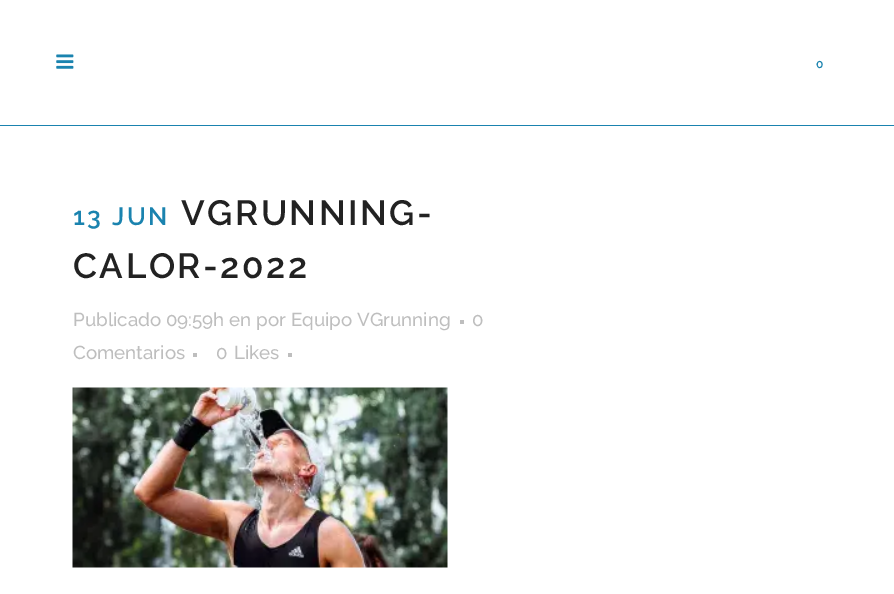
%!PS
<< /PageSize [894 594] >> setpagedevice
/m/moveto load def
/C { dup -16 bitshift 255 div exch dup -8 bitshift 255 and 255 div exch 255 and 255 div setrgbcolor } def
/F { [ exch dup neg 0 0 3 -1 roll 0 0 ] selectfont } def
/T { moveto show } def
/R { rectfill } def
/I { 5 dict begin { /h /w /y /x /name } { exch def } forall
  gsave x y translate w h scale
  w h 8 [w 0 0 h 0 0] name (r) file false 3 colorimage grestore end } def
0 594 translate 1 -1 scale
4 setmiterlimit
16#FFFFFF C
0 0 894 594 R
16#1A83AF C
0 125 894 1 R
(1.rgb) 56 54 18 15 I
/Raleway-SemiBold 12 F
(0) 816 68 T
/Raleway-SemiBold 25 F
73 225 m 2.5 0 (13 JUN) ashow
/Raleway-SemiBold 35 F
16#222222 C
181 225 m 2.5 0 (VGRUNNING-) ashow
73 278 m 2.5 0 (CALOR-2022) ashow
/Raleway-Medium 18.75 F
16#BEBEBE C
(Publicado 09:59h en por Equipo VGrunning) 73 326 T
460 320 4 4 R
(0) 472 326 T
(Comentarios) 73 359 T
193 353 4 4 R
(0) 216 359 T
(Likes) 234 359 T
288 353 4 4 R
(2.rgb) 72 387 376 181 I
showpage
